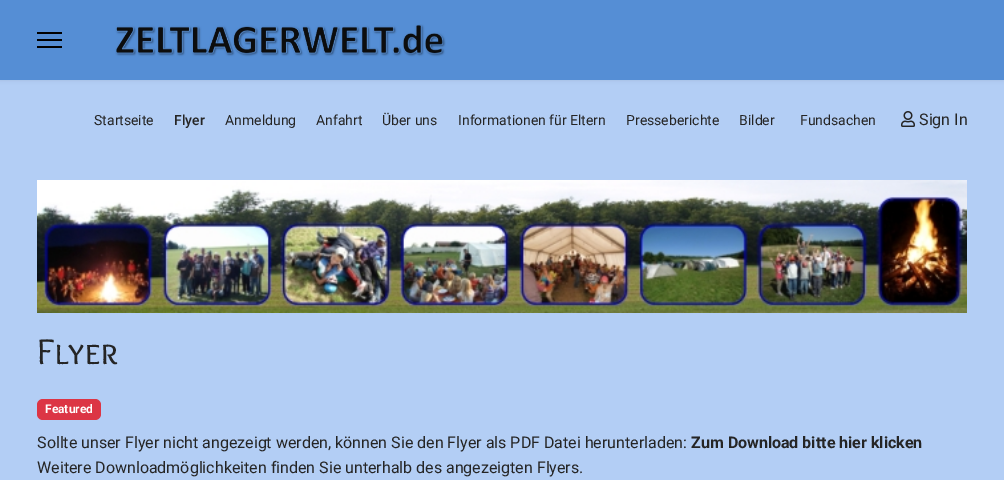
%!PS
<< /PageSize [1004 480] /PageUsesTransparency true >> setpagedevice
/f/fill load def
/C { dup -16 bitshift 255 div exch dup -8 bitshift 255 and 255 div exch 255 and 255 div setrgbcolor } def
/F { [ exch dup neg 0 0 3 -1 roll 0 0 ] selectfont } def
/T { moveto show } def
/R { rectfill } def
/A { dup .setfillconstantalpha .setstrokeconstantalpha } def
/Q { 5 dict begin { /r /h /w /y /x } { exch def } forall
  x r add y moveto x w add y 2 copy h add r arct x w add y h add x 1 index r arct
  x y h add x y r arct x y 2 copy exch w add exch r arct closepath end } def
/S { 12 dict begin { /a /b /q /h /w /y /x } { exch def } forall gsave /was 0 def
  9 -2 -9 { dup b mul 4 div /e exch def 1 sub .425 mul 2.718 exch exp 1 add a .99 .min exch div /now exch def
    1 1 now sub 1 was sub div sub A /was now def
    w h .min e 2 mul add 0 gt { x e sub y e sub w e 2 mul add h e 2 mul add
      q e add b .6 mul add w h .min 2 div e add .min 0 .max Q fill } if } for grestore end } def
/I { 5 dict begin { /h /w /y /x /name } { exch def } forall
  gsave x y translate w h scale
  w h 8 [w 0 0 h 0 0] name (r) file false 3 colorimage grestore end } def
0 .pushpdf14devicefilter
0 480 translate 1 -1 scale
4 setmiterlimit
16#B3CEF5 C
0 0 1004 480 R
16#000000 C
0 0 1004 80 0 2 .1 S
16#558ED5 C
0 0 1004 80 R
16#000000 C
37 32 25 2 R
37 39 25 2 R
37 46 25 2 R
(1.rgb) 115 24 331 33 I
/Roboto-Regular 14 F
16#252525 C
(Startseite) 94 125 T
/Roboto-Medium 14 F
(Flyer) 174 125 T
/Roboto-Regular 14 F
(Anmeldung) 225 125 T
(Anfahrt) 316 125 T
(Über uns) 382 125 T
(Informationen für Eltern) 458 125 T
(Presseberichte) 626 125 T
(Bilder) 739 125 T
(Fundsachen) 800 125 T
(2.rgb) 901 111 14 16 I
/Roboto-Regular 16 F
(Sign In) 919 125 T
(3.rgb) 37 180 930 133 I
/OverlockSC-Regular 37 F
(Flyer) 37 364 T
16#DC3545 C
37 399 64 21 6 Q f
/Roboto-Bold 12 F
16#FFFFFF C
(Featured) 45 413 T
/Roboto-Regular 16 F
16#252525 C
(Sollte unser Flyer nicht angezeigt werden, können Sie den Flyer als PDF Datei herunterladen:) 37 448 T
/Roboto-Bold 16 F
(Zum Download bitte hier klicken) 691 448 T
/Roboto-Regular 16 F
(Weitere Downloadmöglichkeiten finden Sie unterhalb des angezeigten Flyers.) 37 473 T
.poppdf14devicefilter showpage
